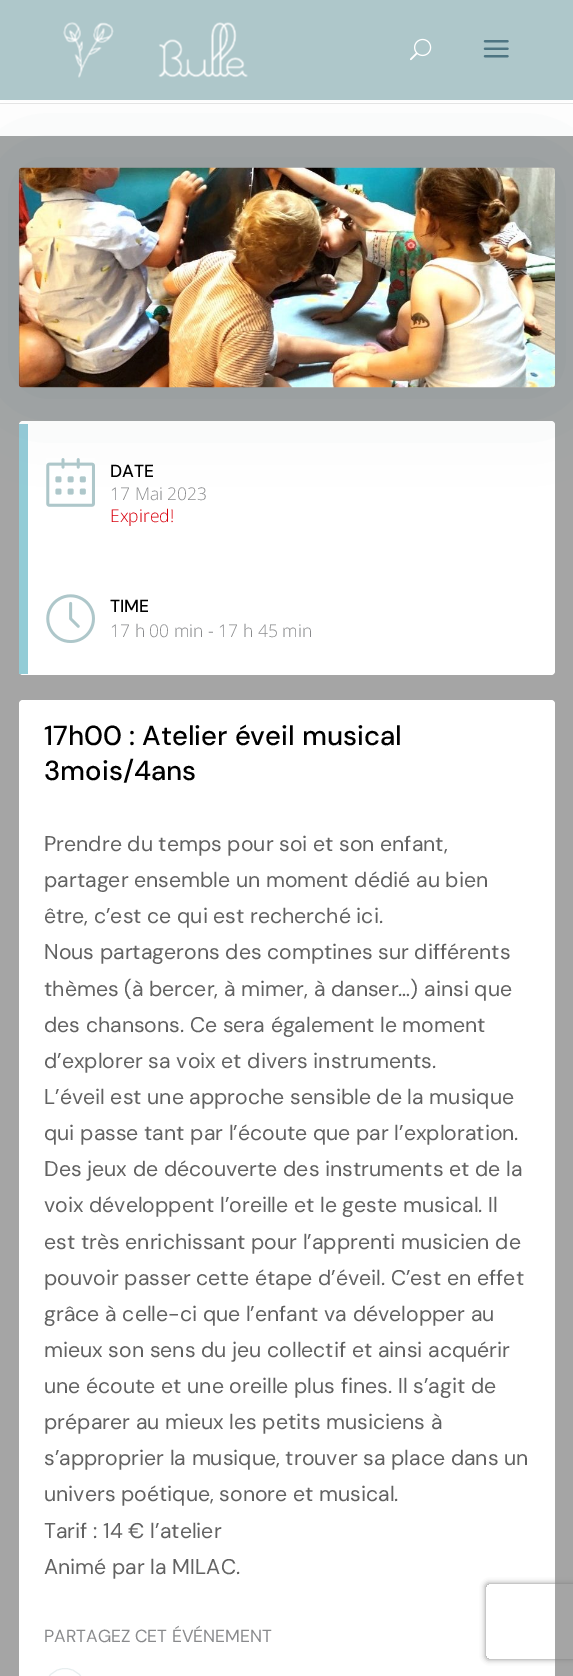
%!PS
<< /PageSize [573 1676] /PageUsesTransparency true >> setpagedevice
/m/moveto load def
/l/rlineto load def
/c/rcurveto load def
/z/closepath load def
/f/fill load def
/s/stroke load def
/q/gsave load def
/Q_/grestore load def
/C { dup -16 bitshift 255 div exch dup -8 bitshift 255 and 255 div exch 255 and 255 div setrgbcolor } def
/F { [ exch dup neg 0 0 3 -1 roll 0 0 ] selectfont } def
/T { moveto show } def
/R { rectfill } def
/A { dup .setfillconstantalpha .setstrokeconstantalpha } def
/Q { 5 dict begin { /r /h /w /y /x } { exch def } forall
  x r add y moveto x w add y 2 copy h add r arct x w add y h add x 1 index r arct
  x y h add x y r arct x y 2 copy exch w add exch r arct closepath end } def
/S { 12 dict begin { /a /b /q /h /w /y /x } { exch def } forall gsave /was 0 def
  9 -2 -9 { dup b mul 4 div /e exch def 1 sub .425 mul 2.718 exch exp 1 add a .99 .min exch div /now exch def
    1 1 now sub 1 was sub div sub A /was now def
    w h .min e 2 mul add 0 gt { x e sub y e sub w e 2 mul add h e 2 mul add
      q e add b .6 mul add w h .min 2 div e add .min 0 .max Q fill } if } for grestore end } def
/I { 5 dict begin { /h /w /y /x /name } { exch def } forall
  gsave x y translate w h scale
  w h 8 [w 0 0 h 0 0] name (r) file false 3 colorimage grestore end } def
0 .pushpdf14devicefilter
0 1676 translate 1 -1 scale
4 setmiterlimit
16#FFFFFF C
0 0 573 1676 R
16#A5A5A5 C
0 136 573 1540 R
16#FFFFFF C
19 421 536 254 4 Q f
16#93CCD6 C
19 424 9 250 R
16#1B455B C
19 168 536 220 4 44 .12 S
16#E4E4E4 C
0 102 m 0 2 l 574 0 l 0 -103 l 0 101 l z f
16#AEC7CA C
0 0 573 100 R
16#FFFFFF C
0 102 573 1 R
(1.rgb) 63 22 185 56 I
(2.rgb) 410 38 22 23 I
(3.rgb) 483 40 26 18 I
(4.rgb) 18 167 537 221 I
(5.rgb) 46 458 49 49 I
/DMSans-Medium 17.5 F
16#000000 C
(DATE) 110 477 T
/OpenSans-Light 17.5 F
16#898A8C C
(17 Mai 2023) 110 500 T
16#D8000C C
(Expired!) 110 522 T
(6.rgb) 46 594 49 49 I
/DMSans-Medium 17.5 F
16#000000 C
(TIME) 110 612 T
/OpenSans-Light 17.5 F
16#898A8C C
(17 h 00 min - 17 h 45 min) 110 637 T
16#FFFFFF C
19 700 536 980 4 Q f
/DMSans-Medium 27.5 F
16#000000 C
(17h00 : Atelier éveil musical) 44 745 T
(3mois/4ans) 44 780 T
/DMSans-Regular 21.25 F
16#626262 C
(Prendre du temps pour soi et son enfant,) 44 851 T
(partager ensemble un moment dédié au bien) 44 887 T
(être, c’est ce qui est recherché ici.) 44 923 T
(Nous partagerons des comptines sur différents) 44 959 T
(thèmes \(à bercer, à mimer, à danser…\) ainsi que) 44 996 T
(des chansons. Ce sera également le moment) 44 1032 T
(d’explorer sa voix et divers instruments.) 44 1068 T
(L’éveil est une approche sensible de la musique) 44 1104 T
(qui passe tant par l’écoute que par l’exploration.) 44 1140 T
(Des jeux de découverte des instruments et de la) 44 1176 T
(voix développent l’oreille et le geste musical. Il) 44 1212 T
(est très enrichissant pour l’apprenti musicien de) 44 1249 T
(pouvoir passer cette étape d’éveil. C’est en effet) 44 1285 T
(grâce à celle-ci que l’enfant va développer au) 44 1321 T
(mieux son sens du jeu collectif et ainsi acquérir) 44 1357 T
(une écoute et une oreille plus fines. Il s’agit de) 44 1393 T
(préparer au mieux les petits musiciens à) 44 1429 T
(s’approprier la musique, trouver sa place dans un) 44 1465 T
(univers poétique, sonore et musical.) 44 1501 T
(Tarif : 14 € l’atelier) 44 1538 T
(Animé par la MILAC.) 44 1574 T
/DMSans-Regular 17.5 F
16#898A8C C
(PARTAGEZ CET ÉVÉNEMENT) 44 1642 T
16#E7EEEF C
44.5 1668.5 41 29 20.5 Q s
q
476 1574 m 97 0 l 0 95 l -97 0 l z 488.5 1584 m 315 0 l 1.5 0 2.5 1 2.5 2.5 c 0 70 l 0 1.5 -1 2.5 -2.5 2.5 c -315 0 l -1.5 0 -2.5 -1 -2.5 -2.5 c 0 -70 l 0 -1.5 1 -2.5 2.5 -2.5 c z eoclip newpath
16#808080 C
486 1584 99 75 2.5 3 1 S
Q_
.poppdf14devicefilter showpage
